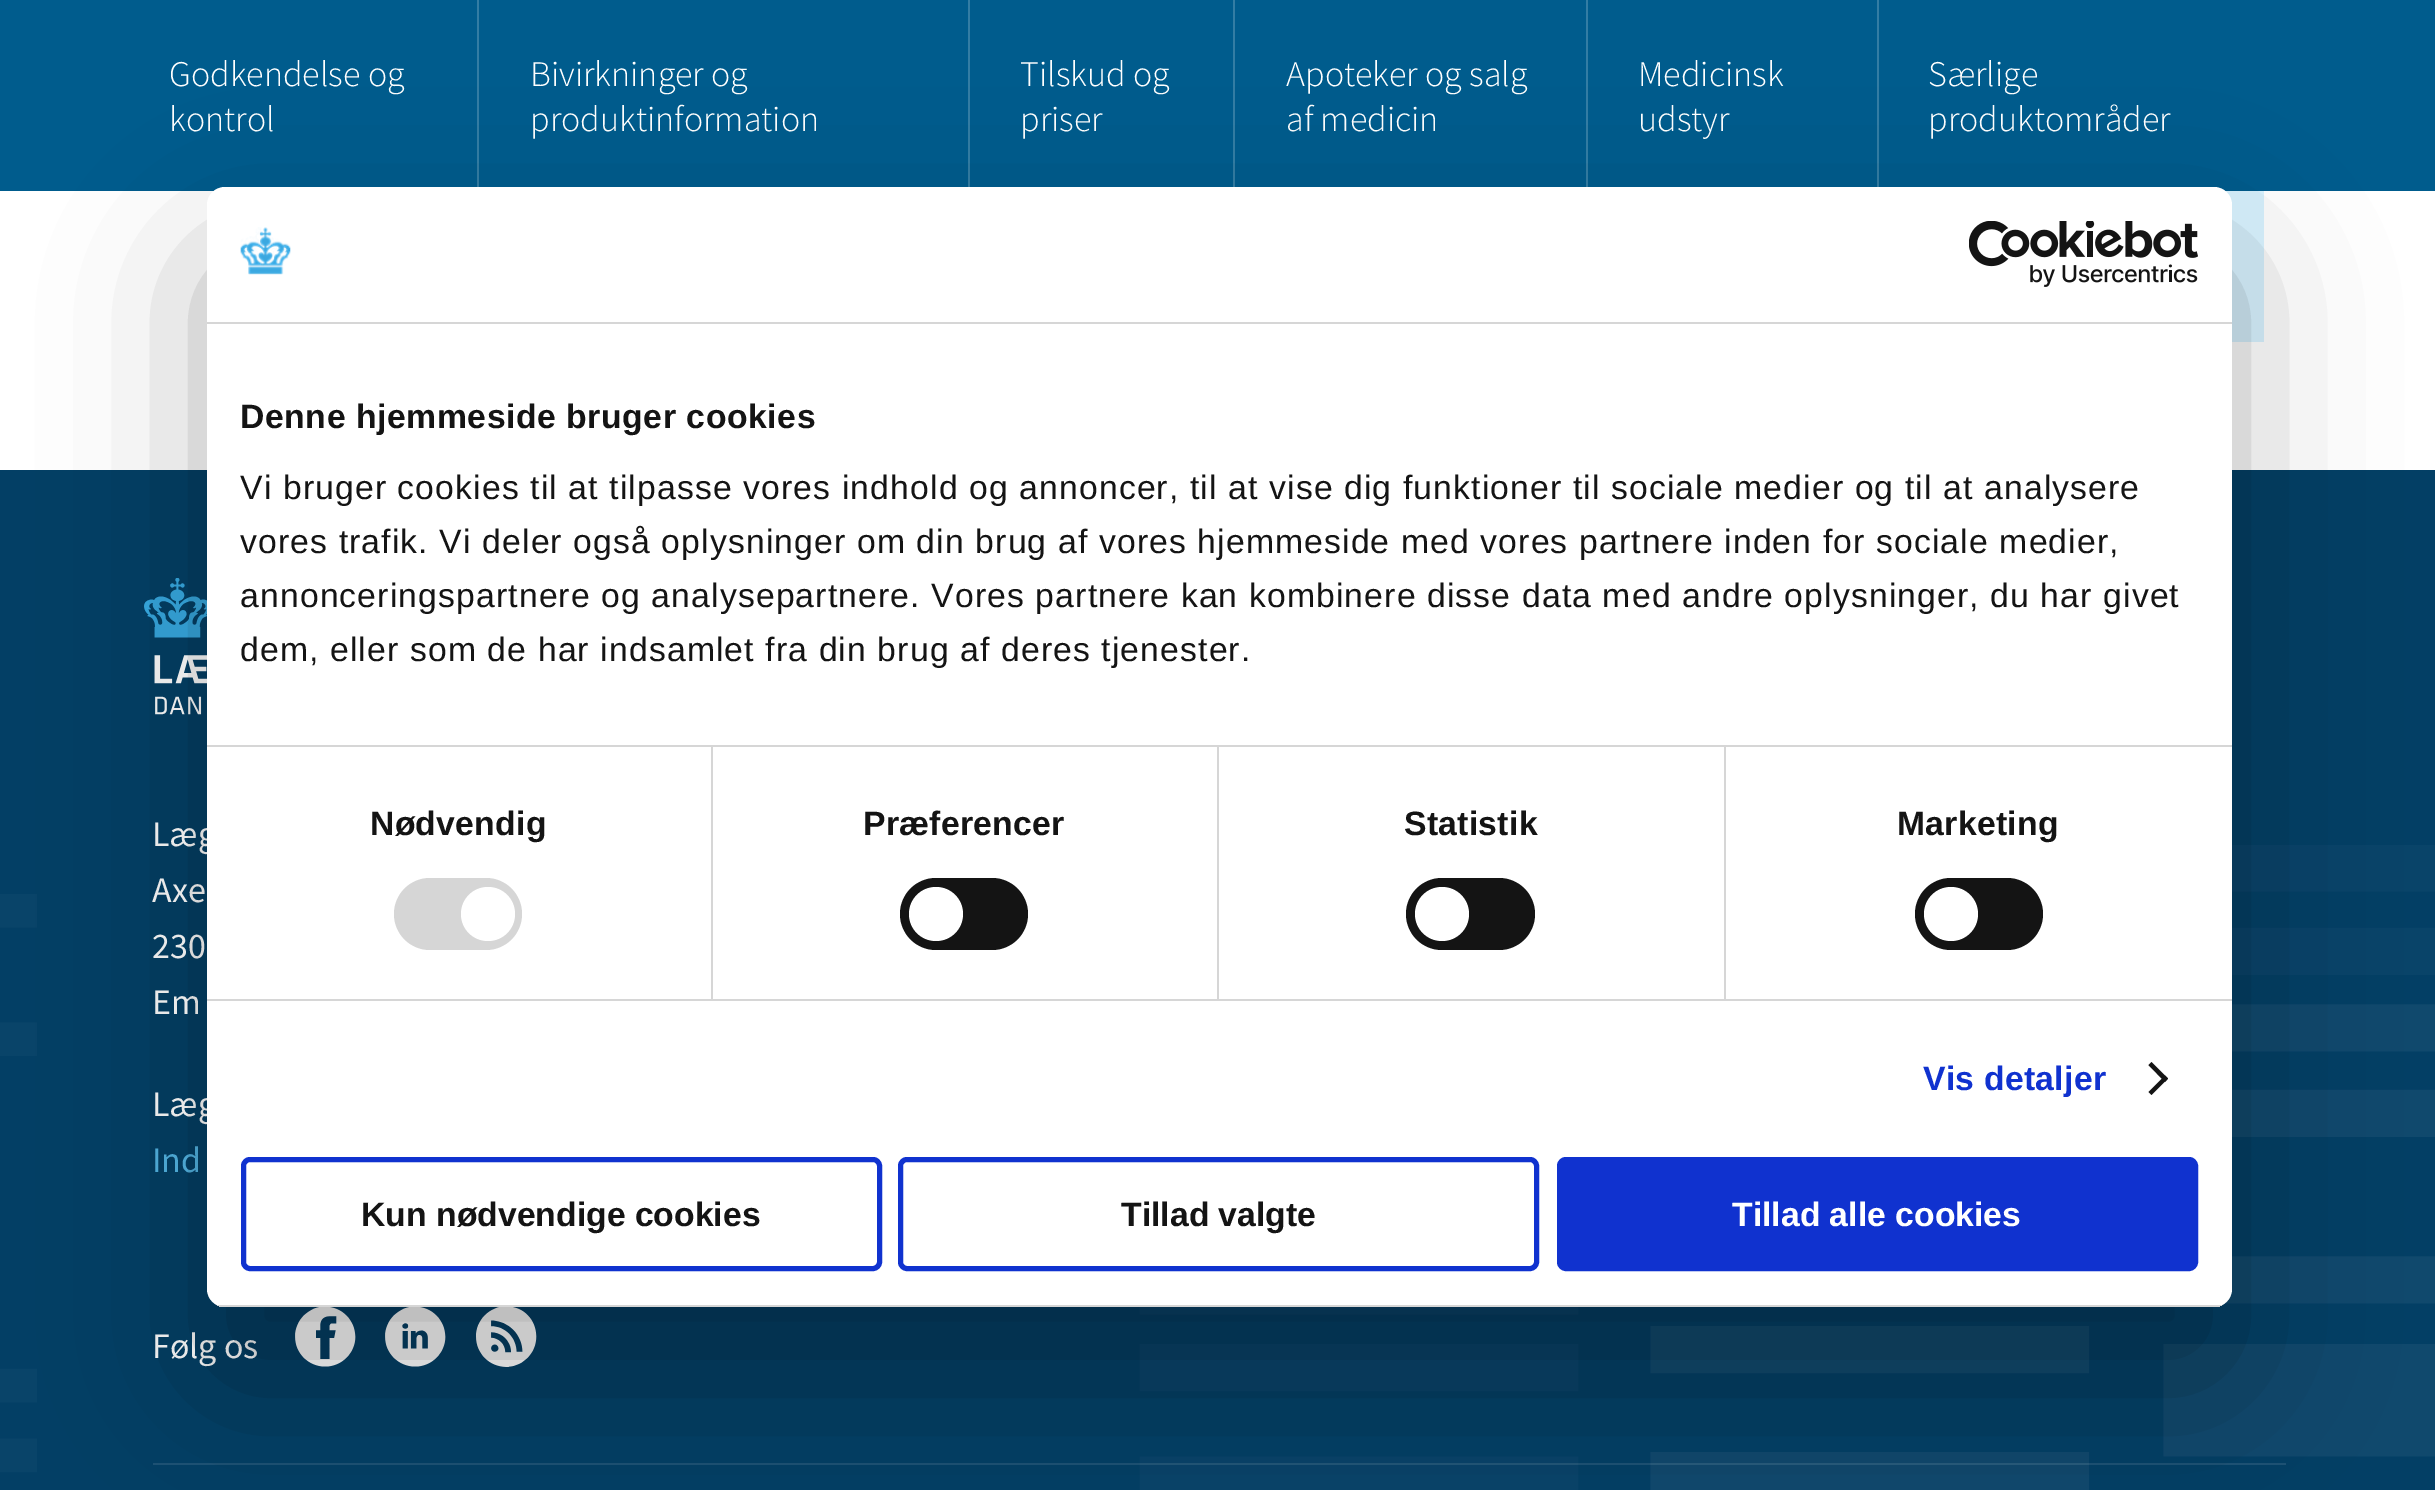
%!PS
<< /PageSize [2435 1490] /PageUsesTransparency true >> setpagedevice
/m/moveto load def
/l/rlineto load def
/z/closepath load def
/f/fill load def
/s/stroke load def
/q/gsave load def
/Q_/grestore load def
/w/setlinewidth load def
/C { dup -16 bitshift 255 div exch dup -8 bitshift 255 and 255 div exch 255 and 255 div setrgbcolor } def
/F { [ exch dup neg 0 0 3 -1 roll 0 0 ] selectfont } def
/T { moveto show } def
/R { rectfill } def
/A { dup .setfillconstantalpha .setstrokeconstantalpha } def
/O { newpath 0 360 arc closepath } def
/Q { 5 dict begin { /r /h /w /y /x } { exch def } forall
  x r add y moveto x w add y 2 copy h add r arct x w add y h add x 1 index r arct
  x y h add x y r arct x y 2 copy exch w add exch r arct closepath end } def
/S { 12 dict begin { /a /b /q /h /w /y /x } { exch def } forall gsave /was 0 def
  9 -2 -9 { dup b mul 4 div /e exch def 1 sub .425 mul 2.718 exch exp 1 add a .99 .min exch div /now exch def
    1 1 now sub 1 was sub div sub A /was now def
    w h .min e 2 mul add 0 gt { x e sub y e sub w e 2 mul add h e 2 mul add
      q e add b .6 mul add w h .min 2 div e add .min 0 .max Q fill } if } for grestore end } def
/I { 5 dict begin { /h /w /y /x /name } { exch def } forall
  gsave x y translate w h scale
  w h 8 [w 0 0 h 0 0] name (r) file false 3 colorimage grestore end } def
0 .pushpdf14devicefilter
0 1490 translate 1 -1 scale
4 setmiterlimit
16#FFFFFF C
0 0 2435 1490 R
16#005C8D C
0 0 2435 191 R
/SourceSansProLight-Light 36 F
16#FFFFFF C
(Godkendelse og) 169 86 T
(kontrol) 169 131 T
16#337DA4 C
477 0 2 191 R
16#FFFFFF C
(Bivirkninger og) 530 86 T
(produktinformation) 530 131 T
16#337DA4 C
968 0 2 191 R
16#FFFFFF C
(Tilskud og) 1020 86 T
(priser) 1020 131 T
16#337DA4 C
1233 0 2 191 R
16#FFFFFF C
(Apoteker og salg) 1286 86 T
(af medicin) 1286 131 T
16#337DA4 C
1586 0 2 191 R
16#FFFFFF C
(Medicinsk) 1638 86 T
(udstyr) 1638 131 T
16#337DA4 C
1877 0 2 191 R
16#FFFFFF C
(Særlige) 1928 86 T
(produktområder) 1928 131 T
16#D9F3FF C
2225 191 39 151 R
16#033F65 C
0 470 2435 1020 R
(1.rgb) 0 845 2435 645 I
(2.rgb) 144 578 63 137 I
/SourceSansPro-Regular 36 F
16#FFFFFF C
(Læg) 152 846 T
(Axe) 152 902 T
(230) 152 958 T
(Em) 152 1014 T
(Læg) 152 1116 T
16#53B4E4 C
(Ind) 152 1172 T
16#FFFFFF C
(Følg os) 152 1358 T
(3.rgb) 295 1307 61 60 I
(4.rgb) 385 1307 61 60 I
(5.rgb) 476 1307 61 60 I
0.1 A
153 1463 2133 2 R
1 A
16#000000 C
207 259 2025 1120 18 76.5 .3 S
16#FFFFFF C
207 187 2025 1120 18 Q f
16#D6D6D6 C
207 322 2025 2 R
(6.rgb) 240 227 51 48 I
(7.rgb) 1969 221 229 66 I
207 745 2025 2 R
/LiberationSans-Bold 33.75 F
16#141414 C
240 428 m .55 0 (Denne hjemmeside bruger cookies) ashow
/LiberationSans-Regular 33.75 F
240 499 m 1.12 0 (Vi bruger cookies til at tilpasse vores indhold og annoncer, til at vise dig funktioner til sociale medier og til at analysere) ashow
240 553 m 1.12 0 (vores trafik. Vi deler også oplysninger om din brug af vores hjemmeside med vores partnere inden for sociale medier,) ashow
240 607 m 1.12 0 (annonceringspartnere og analysepartnere. Vores partnere kan kombinere disse data med andre oplysninger, du har givet) ashow
240 661 m 1.12 0 (dem, eller som de har indsamlet fra din brug af deres tjenester.) ashow
16#D6D6D6 C
207 999 2025 2 R
711 747 2 252 R
/LiberationSans-Bold 33.75 F
16#141414 C
370 835 m .25 0 (Nødvendig) ashow
16#D6D6D6 C
394 878 128 72 36 Q f
16#FFFFFF C
488 914 27 O f
16#D6D6D6 C
1217 747 2 252 R
16#141414 C
863 835 m .25 0 (Præferencer) ashow
900 878 128 72 36 Q f
16#FFFFFF C
936 914 27 O f
16#D6D6D6 C
1724 747 2 252 R
16#141414 C
1404 835 m .25 0 (Statistik) ashow
1406 878 129 72 36 Q f
16#FFFFFF C
1442 914 27 O f
16#141414 C
1897 835 m .25 0 (Marketing) ashow
1915 878 128 72 36 Q f
16#FFFFFF C
1951 914 27 O f
16#1032CF C
1923 1090 m .25 0 (Vis detaljer) ashow
16#141414 C
2151.5 1062 m 16.5 16.5 l -3 3.5 l -16.5 -17 l z f
2165 1075.5 m 3 3 l -16.5 16.5 l -3 -3 l z f
q
207 187 2025 1120 18 Q clip newpath
16#D6D6D6 C
217 1305 2005 2 R
Q_
16#1032CF C
5 w
243.5 1159.5 636 109 6.5 Q s
16#141414 C
(Kun nødvendige cookies) 361 1226 T
16#1032CF C
900.5 1159.5 636 109 6.5 Q s
16#141414 C
(Tillad valgte) 1121 1226 T
16#1032CF C
1559.5 1159.5 636 109 6.5 Q q f Q_
s
16#FFFFFF C
(Tillad alle cookies) 1732 1226 T
.poppdf14devicefilter showpage
